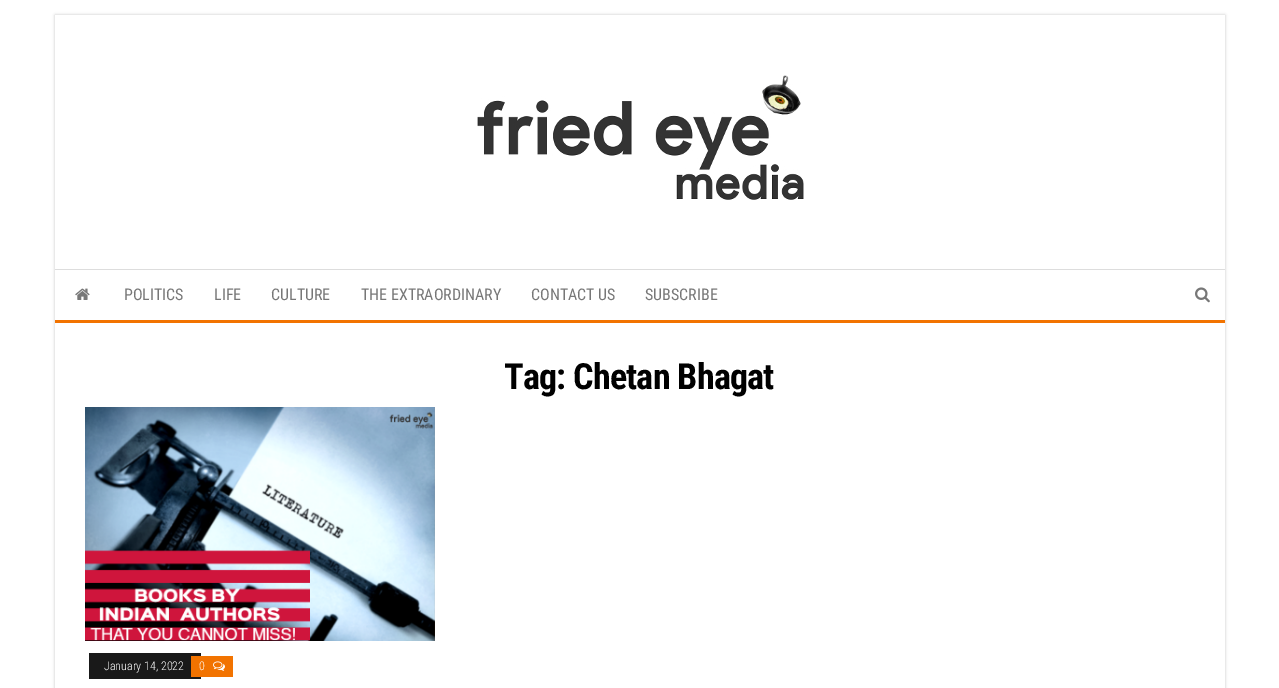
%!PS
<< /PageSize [1279 688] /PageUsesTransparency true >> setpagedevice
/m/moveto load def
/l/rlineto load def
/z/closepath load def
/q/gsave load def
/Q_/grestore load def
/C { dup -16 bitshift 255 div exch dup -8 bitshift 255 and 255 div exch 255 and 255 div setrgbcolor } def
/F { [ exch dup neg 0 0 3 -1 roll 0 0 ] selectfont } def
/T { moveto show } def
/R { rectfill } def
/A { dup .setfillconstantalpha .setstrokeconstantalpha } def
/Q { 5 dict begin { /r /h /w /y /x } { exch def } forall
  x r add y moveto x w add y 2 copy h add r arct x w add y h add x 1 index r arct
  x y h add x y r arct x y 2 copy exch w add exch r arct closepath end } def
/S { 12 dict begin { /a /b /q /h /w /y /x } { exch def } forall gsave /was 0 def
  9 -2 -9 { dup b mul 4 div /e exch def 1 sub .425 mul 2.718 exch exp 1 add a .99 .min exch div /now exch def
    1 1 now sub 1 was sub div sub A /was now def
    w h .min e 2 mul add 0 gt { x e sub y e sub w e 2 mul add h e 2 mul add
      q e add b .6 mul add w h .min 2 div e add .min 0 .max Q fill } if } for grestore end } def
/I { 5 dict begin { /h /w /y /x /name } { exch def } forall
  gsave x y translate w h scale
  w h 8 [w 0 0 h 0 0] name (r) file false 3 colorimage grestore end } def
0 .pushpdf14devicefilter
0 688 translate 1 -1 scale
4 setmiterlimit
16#FFFFFF C
0 0 1279 688 R
q
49 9 m 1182 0 l 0 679 l -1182 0 l z 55 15 m 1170 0 l 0 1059 l -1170 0 l z eoclip newpath
16#CACACA C
55 15 1170 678 0 1.5 1 S
Q_
(1.rgb) 477 75 327 125 I
16#DDDDDD C
55 269 1170 1 R
16#F27300 C
55 320 1170 3 R
(2.rgb) 75 288 15 12 I
/RobotoCondensed-Regular 16 F
16#777777 C
(POLITICS) 124 300 T
(LIFE) 214 300 T
(CULTURE) 271 300 T
(THE EXTRAORDINARY) 361 300 T
(CONTACT US) 531 300 T
(SUBSCRIBE) 645 300 T
(3.rgb) 1195 287 15 16 I
/RobotoCondensed-Bold 36 F
16#000000 C
504 389 m -.75 0 (Tag: Chetan Bhagat) ashow
(4.rgb) 85 407 350 234 I
16#191919 C
89 653 112 26 R
/RobotoCondensed-Light 12 F
16#FFFFFF C
(January 14, 2022) 104 670 T
16#F27300 C
191 656 42 21 R
16#FFFFFF C
(0) 199 670 T
(5.rgb) 213 661 12 10 I
.poppdf14devicefilter showpage
